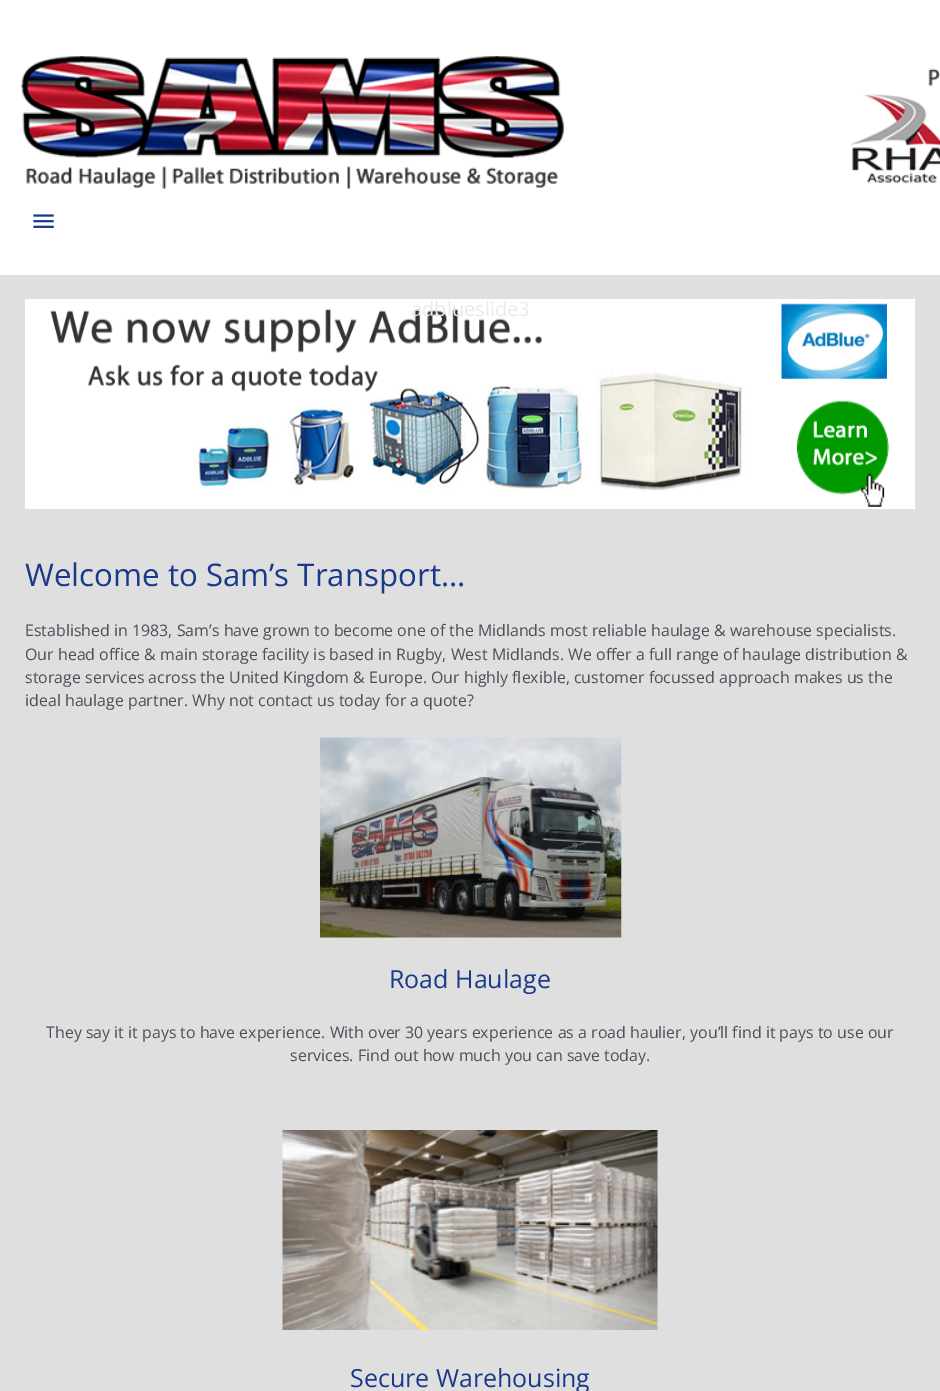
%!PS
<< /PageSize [940 1391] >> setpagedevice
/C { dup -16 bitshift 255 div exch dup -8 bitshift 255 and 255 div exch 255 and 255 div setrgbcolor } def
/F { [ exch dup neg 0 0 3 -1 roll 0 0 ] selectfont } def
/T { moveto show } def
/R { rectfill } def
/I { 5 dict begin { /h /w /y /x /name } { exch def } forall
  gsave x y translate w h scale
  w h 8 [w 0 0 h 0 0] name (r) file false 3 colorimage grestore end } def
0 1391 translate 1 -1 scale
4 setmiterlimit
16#DFDFDF C
0 0 940 1391 R
16#FFFFFF C
0 0 940 275 R
(1.rgb) 21 56 919 133 I
(2.rgb) 33 214 21 14 I
(3.rgb) 25 299 890 210 I
/OpenSans-Regular 20 F
16#EAEAEA C
(adblueslide3) 411 316 T
/OpenSans-Regular 31.25 F
16#193A8B C
(Welcome to Sam’s Transport…) 25 586 T
/OpenSans-Regular 15.95 F
16#4B4F58 C
(Established in 1983, Sam’s have grown to become one of the Midlands most reliable haulage & warehouse specialists.) 25 636 T
(Our head office & main storage facility is based in Rugby, West Midlands. We offer a full range of haulage distribution &) 25 660 T
(storage services across the United Kingdom & Europe. Our highly flexible, customer focussed approach makes us the) 25 683 T
(ideal haulage partner. Why not contact us today for a quote?) 25 706 T
(4.rgb) 320 737 302 201 I
/OpenSans-Regular 25 F
16#193A8B C
(Road Haulage) 389 988 T
/OpenSans-Regular 15.95 F
16#4B4F58 C
(They say it it pays to have experience. With over 30 years experience as a road haulier, you’ll find it pays to use our) 46 1038 T
(services. Find out how much you can save today.) 290 1061 T
(5.rgb) 282 1130 376 200 I
/OpenSans-Regular 25 F
16#193A8B C
(Secure Warehousing) 350 1387 T
showpage
